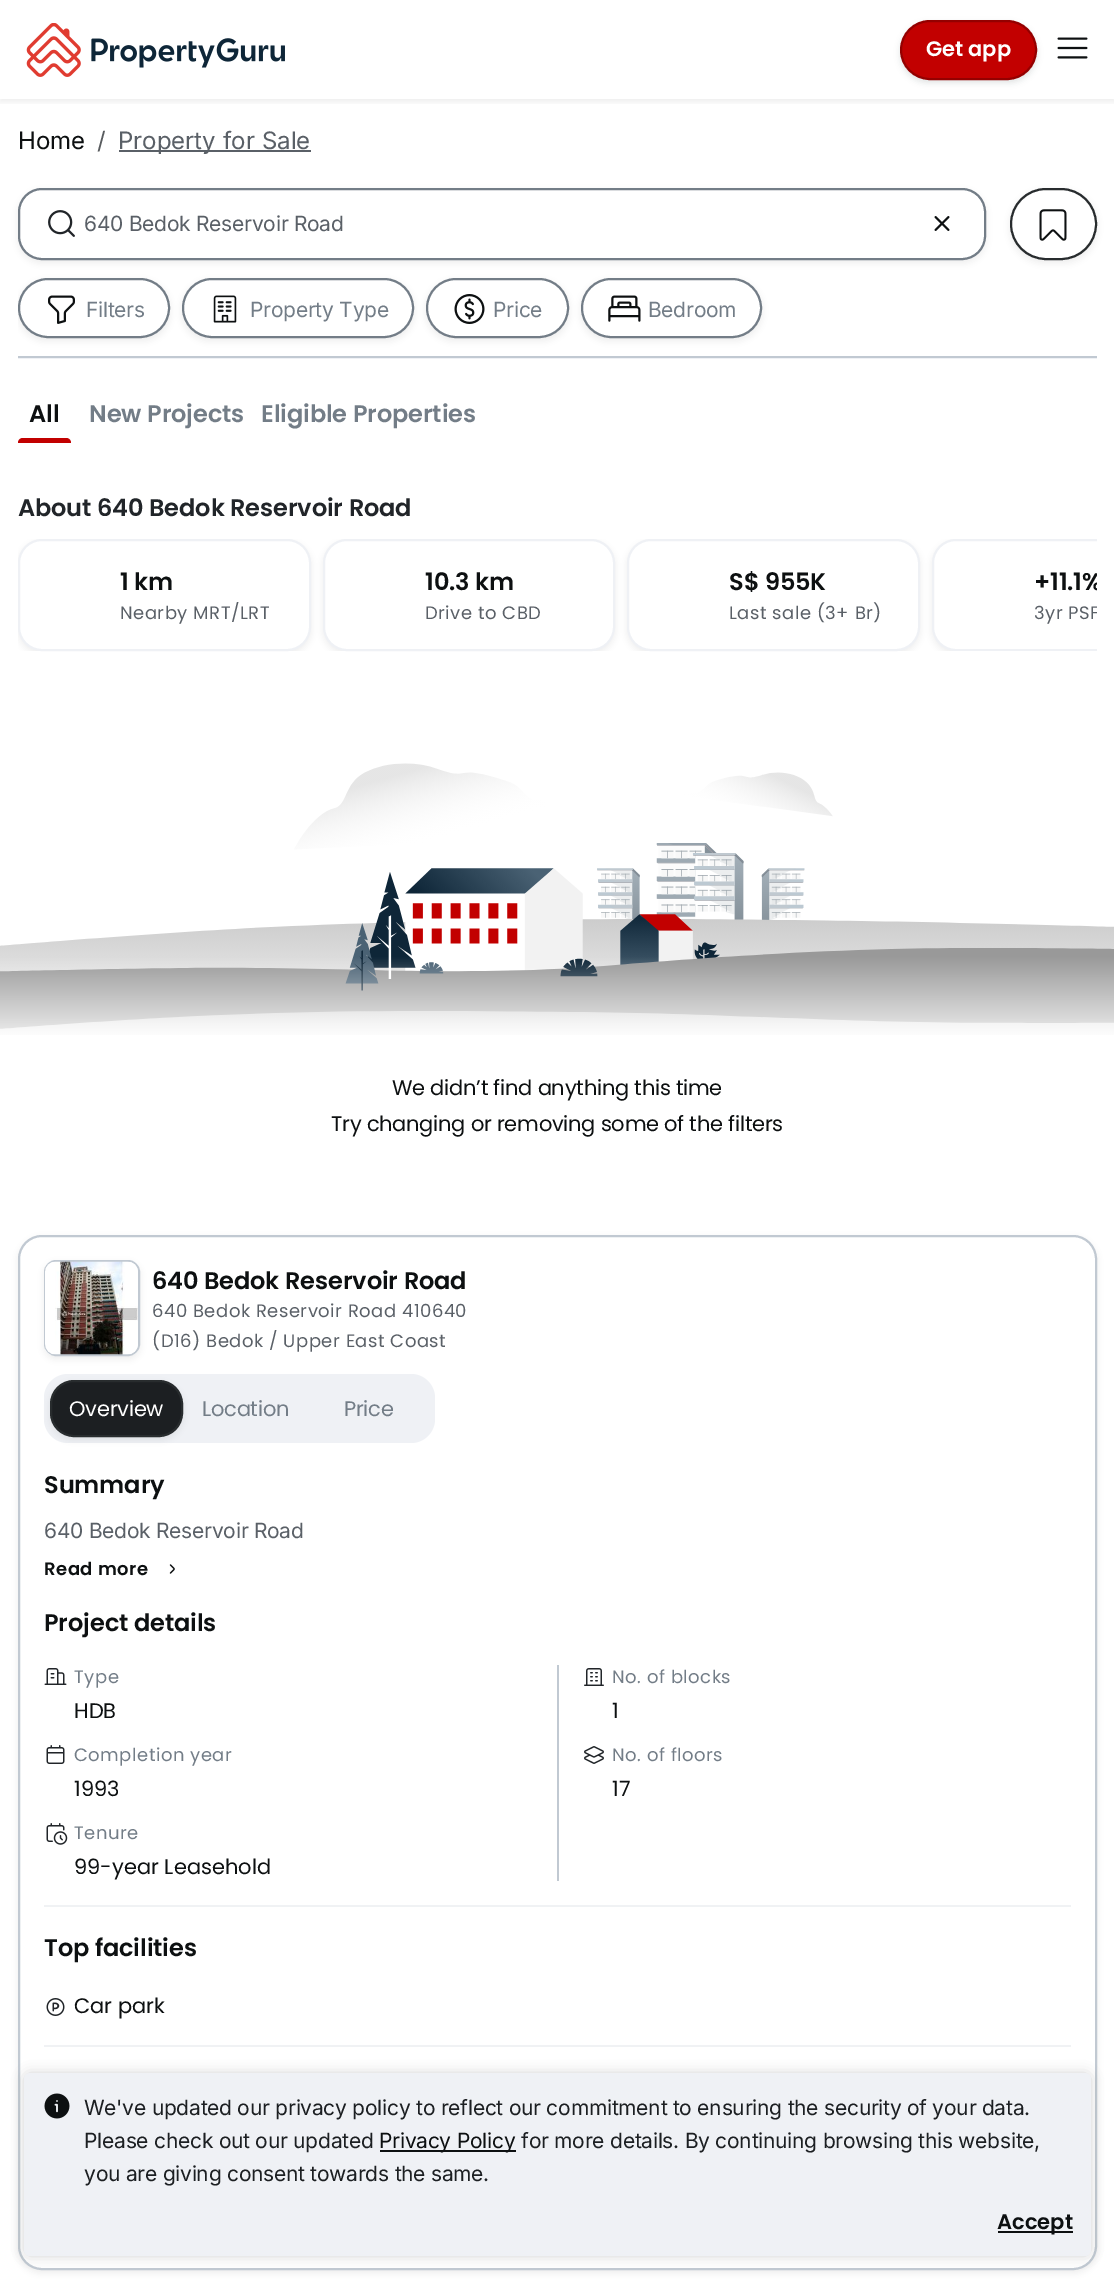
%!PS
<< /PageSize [1114 2279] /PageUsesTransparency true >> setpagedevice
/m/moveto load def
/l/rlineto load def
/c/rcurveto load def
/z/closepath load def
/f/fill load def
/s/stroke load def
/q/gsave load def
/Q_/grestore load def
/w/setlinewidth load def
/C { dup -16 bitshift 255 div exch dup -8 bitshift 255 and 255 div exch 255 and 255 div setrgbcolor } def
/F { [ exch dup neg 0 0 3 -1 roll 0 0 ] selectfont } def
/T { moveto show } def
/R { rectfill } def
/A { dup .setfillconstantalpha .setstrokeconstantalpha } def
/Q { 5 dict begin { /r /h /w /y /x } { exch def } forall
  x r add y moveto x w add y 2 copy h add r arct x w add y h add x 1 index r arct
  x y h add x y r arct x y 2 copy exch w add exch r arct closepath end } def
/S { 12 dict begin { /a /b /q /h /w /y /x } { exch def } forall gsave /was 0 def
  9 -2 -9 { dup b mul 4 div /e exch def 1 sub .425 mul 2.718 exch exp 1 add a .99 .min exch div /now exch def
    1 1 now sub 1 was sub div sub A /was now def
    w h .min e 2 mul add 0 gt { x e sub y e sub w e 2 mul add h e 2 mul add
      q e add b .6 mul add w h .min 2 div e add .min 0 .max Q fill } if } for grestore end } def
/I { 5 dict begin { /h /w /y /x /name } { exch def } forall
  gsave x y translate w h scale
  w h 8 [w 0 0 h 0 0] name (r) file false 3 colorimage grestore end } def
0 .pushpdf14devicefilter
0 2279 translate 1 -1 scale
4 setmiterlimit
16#FFFFFF C
0 0 1114 2279 R
q
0 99 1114 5 rectclip
16#282C2E C
0 3 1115 99 0 3 .08 S
Q_
(1.rgb) 26 23 259 54 I
16#282C2E C
900 23 137 60 30 3 .12 S
16#C20000 C
901 21 135 58 29 Q q f Q_
16#940000 C
2 w
s
/Poppins-SemiBold 21 F
16#FFFFFF C
(Get app) 926 56 T
(2.rgb) 1057 37 31 22 I
/Inter-Regular 24 F
16#0D1011 C
(Home) 18 149 T
16#595C5F C
(/) 97 149 T
16#5A6067 C
119 150 192 2 R
(Property for Sale) 118 149 T
16#282C2E C
18 191 968 72 24 3 .08 S
16#FFFFFF C
19 189 966 70 23 Q q f Q_
16#737D87 C
s
(3.rgb) 48 210 27 27 I
/Inter-Regular 21 F
16#5A6067 C
84 231 m -.25 0 (640 Bedok Reservoir Road) ashow
(4.rgb) 934 216 16 15 I
q
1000 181 m 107 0 l 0 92 l -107 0 l z 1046 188 m 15 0 l 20 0 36 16 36 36 c 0 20 -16 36 -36 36 c -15 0 l -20 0 -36 -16 -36 -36 c 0 -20 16 -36 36 -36 c z eoclip newpath
16#282C2E C
1010 191 87 72 36 3 .08 S
Q_
16#282C2E C
1011 189 85 70 35 Q s
(5.rgb) 1039 209 28 32 I
16#EFF1F5 C
18 358 1079 1 R
16#C1C9D2 C
18 356 1079 2 R
q
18 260 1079 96 rectclip
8 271 m 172 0 l 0 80 l -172 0 l z 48 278 m 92 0 l 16.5 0 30 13.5 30 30 c 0 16.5 -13.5 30 -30 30 c -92 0 l -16.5 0 -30 -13.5 -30 -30 c 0 -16.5 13.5 -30 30 -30 c z eoclip newpath
16#282C2E C
18 281 152 60 30 3 .08 S
Q_
16#737D87 C
19 279 150 58 29 Q s
(6.rgb) 48 295 27 29 I
86 317 m -.25 0 (Filters) ashow
q
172 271 m 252 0 l 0 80 l -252 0 l z 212 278 m 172 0 l 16.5 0 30 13.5 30 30 c 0 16.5 -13.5 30 -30 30 c -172 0 l -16.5 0 -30 -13.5 -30 -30 c 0 -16.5 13.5 -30 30 -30 c z eoclip newpath
16#282C2E C
182 281 232 60 30 3 .08 S
Q_
183 279 230 58 29 Q s
(7.rgb) 213 295 24 28 I
250 317 m -.25 0 (Property Type) ashow
q
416 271 m 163 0 l 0 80 l -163 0 l z 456 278 m 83 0 l 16.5 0 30 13.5 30 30 c 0 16.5 -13.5 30 -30 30 c -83 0 l -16.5 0 -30 -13.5 -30 -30 c 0 -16.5 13.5 -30 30 -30 c z eoclip newpath
16#282C2E C
426 281 143 60 30 3 .08 S
Q_
427 279 141 58 29 Q s
(8.rgb) 454 294 31 30 I
493 317 m -.25 0 (Price) ashow
q
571 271 m 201 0 l 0 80 l -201 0 l z 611 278 m 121 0 l 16.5 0 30 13.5 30 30 c 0 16.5 -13.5 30 -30 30 c -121 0 l -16.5 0 -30 -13.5 -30 -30 c 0 -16.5 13.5 -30 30 -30 c z eoclip newpath
16#282C2E C
581 281 181 60 30 3 .08 S
Q_
582 279 179 58 29 Q s
(9.rgb) 608 295 33 27 I
648 317 m -.25 0 (Bedroom) ashow
/Poppins-SemiBold 24 F
16#0D1011 C
29 422 m -.1 0 (All) ashow
16#C20000 C
23 438 m 43 0 l 3 0 5 2 5 5 c -53 0 l 0 -3 2 -5 5 -5 c z f
16#737D87 C
89 422 m -.1 0 (New Projects) ashow
261 422 m -.1 0 (Eligible Properties) ashow
16#212529 C
18 516 m -.1 0 (About 640 Bedok Reservoir Road) ashow
q
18 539 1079 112 rectclip
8 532 m 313 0 l 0 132 l -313 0 l z 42 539 m 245 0 l 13.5 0 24 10.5 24 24 c 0 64 l 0 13.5 -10.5 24 -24 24 c -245 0 l -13.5 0 -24 -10.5 -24 -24 c 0 -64 l 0 -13.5 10.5 -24 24 -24 c z eoclip newpath
16#282C2E C
18 542 293 112 24 3 .08 S
Q_
16#EFF1F5 C
19 540 291 110 23 Q s
16#0D1011 C
120 590 m -.1 0 (1 km) ashow
/Poppins-Regular 18 F
16#5A6067 C
120 619 m .5 0 (Nearby MRT/LRT) ashow
q
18 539 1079 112 rectclip
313 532 m 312 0 l 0 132 l -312 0 l z 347 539 m 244 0 l 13.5 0 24 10.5 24 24 c 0 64 l 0 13.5 -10.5 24 -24 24 c -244 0 l -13.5 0 -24 -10.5 -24 -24 c 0 -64 l 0 -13.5 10.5 -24 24 -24 c z eoclip newpath
16#282C2E C
323 542 292 112 24 3 .08 S
Q_
16#EFF1F5 C
324 540 290 110 23 Q s
/Poppins-SemiBold 24 F
16#0D1011 C
425 590 m -.1 0 (10.3 km) ashow
/Poppins-Regular 18 F
16#5A6067 C
425 619 m .5 0 (Drive to CBD) ashow
q
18 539 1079 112 rectclip
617 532 m 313 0 l 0 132 l -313 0 l z 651 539 m 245 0 l 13.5 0 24 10.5 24 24 c 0 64 l 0 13.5 -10.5 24 -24 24 c -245 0 l -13.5 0 -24 -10.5 -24 -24 c 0 -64 l 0 -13.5 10.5 -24 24 -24 c z eoclip newpath
16#282C2E C
627 542 293 112 24 3 .08 S
Q_
16#EFF1F5 C
628 540 291 110 23 Q s
/Poppins-SemiBold 24 F
16#0D1011 C
729 590 m -.1 0 (S$ 955K) ashow
/Poppins-Regular 18 F
16#5A6067 C
729 619 m .5 0 (Last sale \(3+ Br\)) ashow
q
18 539 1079 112 rectclip
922 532 m 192 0 l 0 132 l -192 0 l z 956 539 m 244 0 l 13.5 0 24 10.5 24 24 c 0 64 l 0 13.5 -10.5 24 -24 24 c -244 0 l -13.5 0 -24 -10.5 -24 -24 c 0 -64 l 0 -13.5 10.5 -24 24 -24 c z eoclip newpath
16#282C2E C
932 542 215 112 24 3 .08 S
Q_
q
18 539 1079 112 rectclip
16#EFF1F5 C
933 540 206 110 23 Q s
Q_
q
1034 566 63 60 rectclip
/Poppins-SemiBold 24 F
16#0D1011 C
1034 590 m -.1 0 (+11.1%) ashow
Q_
q
1034 602 63 24 rectclip
1034 619 m .5 0 (3yr PSF) ashow
Q_
(10.rgb) 0 763 1114 272 I
/Poppins-Regular 21 F
16#0D1011 C
392 1095 m -.25 0 (We didn’t find anything this time) ashow
331 1131 m -.25 0 (Try changing or removing some of the filters) ashow
16#282C2E C
18 1238 1079 1035 24 3 .08 S
16#FFFFFF C
19 1236 1077 1033 23 Q q f Q_
16#C1C9D2 C
s
16#282C2E C
44 1263 96 96 12 3 .08 S
16#FFFFFF C
45 1261 94 94 11 Q q f Q_
16#C1C9D2 C
s
(11.rgb) 45 1261 93 94 I
/Poppins-SemiBold 24 F
16#0D1011 C
152 1289 m -.1 0 (640 Bedok Reservoir Road) ashow
/Poppins-Regular 18 F
16#5A6067 C
152 1317 m .5 0 (640 Bedok Reservoir Road 410640) ashow
152 1347 m .5 0 (\(D16\) Bedok / Upper East Coast) ashow
16#EFF1F5 C
44 1374 391 69 24 Q f
16#282C2E C
50 1383 133 57 24 3 .08 S
16#1C1F22 C
51 1381 131 55 23 Q q f Q_
16#282C2E C
s
/Poppins-Regular 21 F
16#FFFFFF C
69 1416 m -.25 0 (Overview) ashow
16#737D87 C
202 1416 m -.25 0 (Location) ashow
344 1416 m -.25 0 (Price) ashow
/Poppins-SemiBold 24 F
16#0D1011 C
44 1493 m -.1 0 (Summary) ashow
/Inter-Regular 21 F
16#5A6067 C
44 1538 m -.25 0 (640 Bedok Reservoir Road) ashow
/Poppins-SemiBold 18 F
16#0D1011 C
44 1575 m .5 0 (Read more) ashow
(12.rgb) 169 1564 6 10 I
/Poppins-SemiBold 24 F
44 1631 m -.1 0 (Project details) ashow
(13.rgb) 44 1668 23 17 I
/Poppins-Regular 18 F
16#737D87 C
74 1683 m .5 0 (Type) ashow
/Poppins-Regular 21 F
16#0D1011 C
(HDB) 74 1718 T
(14.rgb) 46 1745 19 19 I
/Poppins-Regular 18 F
16#737D87 C
74 1761 m .5 0 (Completion year) ashow
/Poppins-Regular 21 F
16#0D1011 C
(1993) 74 1796 T
(15.rgb) 46 1823 22 22 I
/Poppins-Regular 18 F
16#737D87 C
74 1839 m .5 0 (Tenure) ashow
/Poppins-Regular 21 F
16#0D1011 C
(99-year Leasehold) 74 1874 T
16#C1C9D2 C
557 1665 2 216 R
(16.rgb) 584 1668 20 18 I
/Poppins-Regular 18 F
16#737D87 C
612 1683 m .5 0 (No. of blocks) ashow
/Poppins-Regular 21 F
16#0D1011 C
(1) 612 1718 T
(17.rgb) 584 1746 20 18 I
/Poppins-Regular 18 F
16#737D87 C
612 1761 m .5 0 (No. of floors) ashow
/Poppins-Regular 21 F
16#0D1011 C
(17) 612 1796 T
16#F0F2F4 C
44 1905 1027 2 R
/Poppins-SemiBold 24 F
16#0D1011 C
44 1956 m -.1 0 (Top facilities) ashow
(18.rgb) 46 1998 19 18 I
/Poppins-Regular 21 F
(Car park) 74 2013 T
16#F0F2F4 C
44 2045 1027 2 R
16#2C2C2C C
24 2073 1067 183 6 6 .2 S
16#EFF1F5 C
24 2073 1067 183 6 Q f
(19.rgb) 44 2093 26 26 I
/Inter-Regular 21 F
16#1C1F22 C
84 2115 m -.25 0 (We've updated our privacy policy to reflect our commitment to ensuring the security of your data.) ashow
84 2148 m -.25 0 (Please check out our updated) ashow
16#0D1011 C
380 2150 136 2 R
379 2148 m -.25 0 (Privacy Policy) ashow
16#1C1F22 C
521 2148 m -.25 0 (for more details. By continuing browsing this website,) ashow
84 2181 m -.25 0 (you are giving consent towards the same.) ashow
16#0D1011 C
998 2231 75 2 R
/Poppins-SemiBold 21 F
(Accept) 997 2229 T
.poppdf14devicefilter showpage
